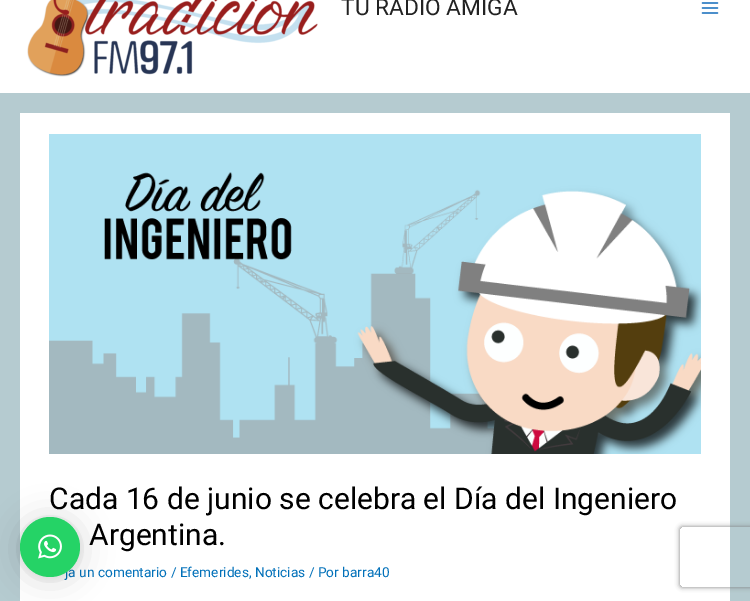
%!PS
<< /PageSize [750 601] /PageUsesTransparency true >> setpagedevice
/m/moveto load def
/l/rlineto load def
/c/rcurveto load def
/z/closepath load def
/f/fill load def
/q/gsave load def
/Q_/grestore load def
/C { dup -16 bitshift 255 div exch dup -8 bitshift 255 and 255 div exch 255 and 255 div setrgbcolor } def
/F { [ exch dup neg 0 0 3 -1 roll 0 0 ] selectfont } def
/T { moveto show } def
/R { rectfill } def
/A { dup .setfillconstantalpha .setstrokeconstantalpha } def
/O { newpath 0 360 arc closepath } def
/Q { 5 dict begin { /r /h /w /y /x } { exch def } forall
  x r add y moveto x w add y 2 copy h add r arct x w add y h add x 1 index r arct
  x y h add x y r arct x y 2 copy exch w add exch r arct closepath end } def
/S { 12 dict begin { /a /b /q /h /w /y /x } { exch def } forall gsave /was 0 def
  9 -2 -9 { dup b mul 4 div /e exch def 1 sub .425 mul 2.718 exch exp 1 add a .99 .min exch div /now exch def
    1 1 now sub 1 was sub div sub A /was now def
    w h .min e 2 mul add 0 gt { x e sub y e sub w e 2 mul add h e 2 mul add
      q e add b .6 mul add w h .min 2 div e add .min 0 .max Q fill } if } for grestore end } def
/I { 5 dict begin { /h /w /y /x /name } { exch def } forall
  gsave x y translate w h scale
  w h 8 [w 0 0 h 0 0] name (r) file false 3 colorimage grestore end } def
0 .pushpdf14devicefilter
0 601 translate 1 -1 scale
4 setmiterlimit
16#B5CBD0 C
0 0 750 601 R
16#FFFFFF C
0 0 750 93 R
(1.rgb) 27 0 291 77 I
/Roboto-Regular 22.75 F
16#222222 C
(TU RADIO AMIGA) 341 15 T
(2.rgb) 701 2 18 12 I
16#FFFFFF C
20 113 710 488 R
(3.rgb) 49 134 652 320 I
/Roboto-Regular 30 F
16#000000 C
(Cada 16 de junio se celebra el Día del Ingeniero) 49 509 T
(Argentina.) 89 545 T
/Roboto-Regular 13.7 F
16#0170B9 C
(ja un comentario / Efemerides, Noticias / Por barra40) 65 577 T
16#000000 C
20 519 60 60 30 16 .16 S
20 518 60 60 30 3 .06 S
16#25D366 C
50 547 30 O f
(4.rgb) 38 534 24 25 I
q
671 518 m 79 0 l 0 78 l -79 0 l z 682 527 m 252 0 l 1 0 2 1 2 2 c 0 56 l 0 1 -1 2 -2 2 c -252 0 l -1 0 -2 -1 -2 -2 c 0 -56 l 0 -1 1 -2 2 -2 c z eoclip newpath
16#808080 C
680 527 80 60 2 2.5 1 S
Q_
.poppdf14devicefilter showpage
